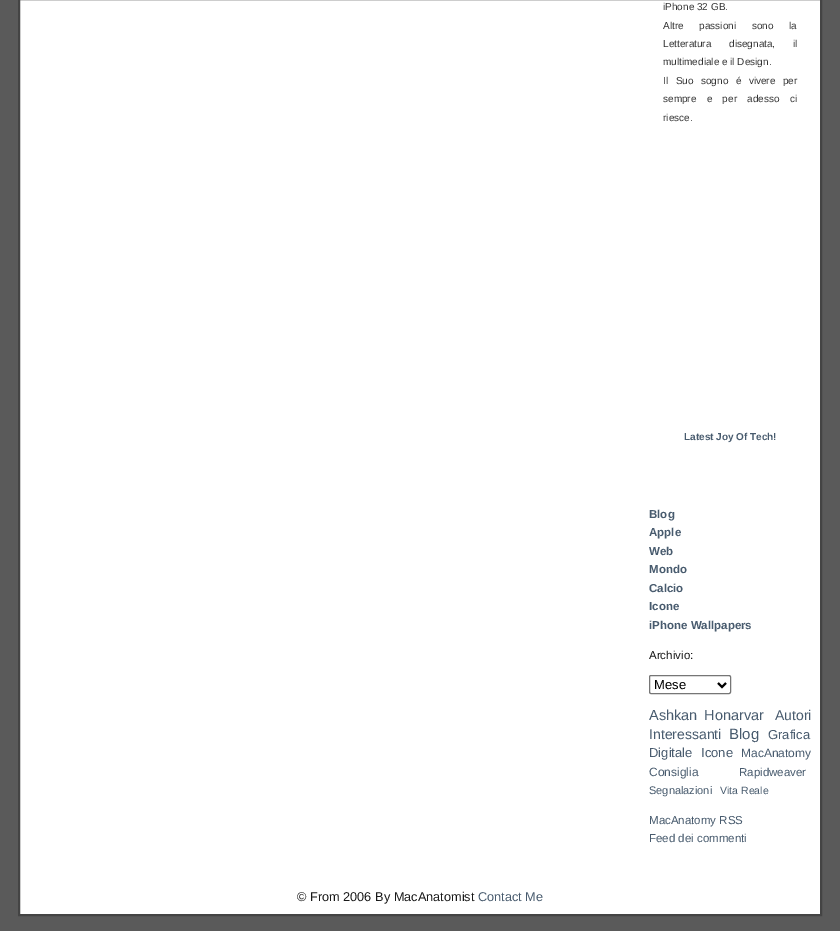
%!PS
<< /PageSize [840 931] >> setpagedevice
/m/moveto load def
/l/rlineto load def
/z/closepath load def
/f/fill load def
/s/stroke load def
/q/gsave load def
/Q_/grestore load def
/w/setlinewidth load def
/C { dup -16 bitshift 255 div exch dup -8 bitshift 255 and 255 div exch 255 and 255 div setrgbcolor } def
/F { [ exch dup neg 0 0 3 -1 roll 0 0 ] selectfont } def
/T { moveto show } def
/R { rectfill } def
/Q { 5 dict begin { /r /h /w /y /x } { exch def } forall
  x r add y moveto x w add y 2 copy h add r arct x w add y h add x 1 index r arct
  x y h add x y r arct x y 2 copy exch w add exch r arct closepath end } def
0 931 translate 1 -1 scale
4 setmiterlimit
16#5A5A5A C
0 0 840 931 R
16#FFFFFF C
19 -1 m 802 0 l 0 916 l -802 0 l z q f Q_
16#444444 C
2 w
s
/LiberationSans-Regular 10 F
16#333333 C
(iPhone 32 GB.) 663 10 T
663 29 m 13 0 32 (Altre passioni sono la) widthshow
663 47 m 15 0 32 (Letteratura disegnata,) widthshow
(il) 793 47 T
(multimediale e il Design.) 663 65 T
663 84 m 4.75 0 32 (Il Suo sogno é vivere per) widthshow
663 102 m 7.5 0 32 (sempre e per adesso) widthshow
(ci) 790 102 T
(riesce.) 663 121 T
/LiberationSans-Bold 10 F
16#485B6E C
(Latest Joy Of Tech!) 684 440 T
/LiberationSans-Bold 11.5 F
(Blog) 649 518 T
(Apple) 649 536 T
(Web) 649 555 T
(Mondo) 649 573 T
(Calcio) 649 592 T
(Icone) 649 610 T
(iPhone Wallpapers) 649 629 T
/LiberationSans-Regular 11.5 F
16#191919 C
(Archivio:) 649 659 T
16#767676 C
1 w
649.5 675.5 81 18 1.5 Q s
16#000000 C
2 w
718 683 m 4 4 l 4 -4 l s
/LiberationSans-Regular 13 F
(Mese) 654 689 T
/LiberationSans-Regular 14.5 F
16#485B6E C
649 720 m 3 0 32 (Ashkan Honarvar) widthshow
/LiberationSans-Regular 14 F
(Autori) 775 720 T
(Interessanti) 649 739 T
/LiberationSans-Regular 15 F
(Blog) 729 739 T
/LiberationSans-Regular 13 F
(Grafica) 768 739 T
(Digitale) 649 757 T
(Icone) 701 757 T
/LiberationSans-Regular 12 F
(MacAnatomy) 741 757 T
(Consiglia) 649 776 T
/LiberationSans-Regular 11.5 F
(Rapidweaver) 739 776 T
/LiberationSans-Regular 11 F
(Segnalazioni) 649 794 T
/LiberationSans-Regular 10.5 F
(Vita Reale) 720 794 T
/LiberationSans-Regular 11.5 F
(MacAnatomy RSS) 649 824 T
(Feed dei commenti) 649 842 T
/LiberationSans-Regular 12.75 F
16#191919 C
(© From 2006 By MacAnatomist) 297 901 T
16#485B6E C
(Contact Me) 478 901 T
showpage
